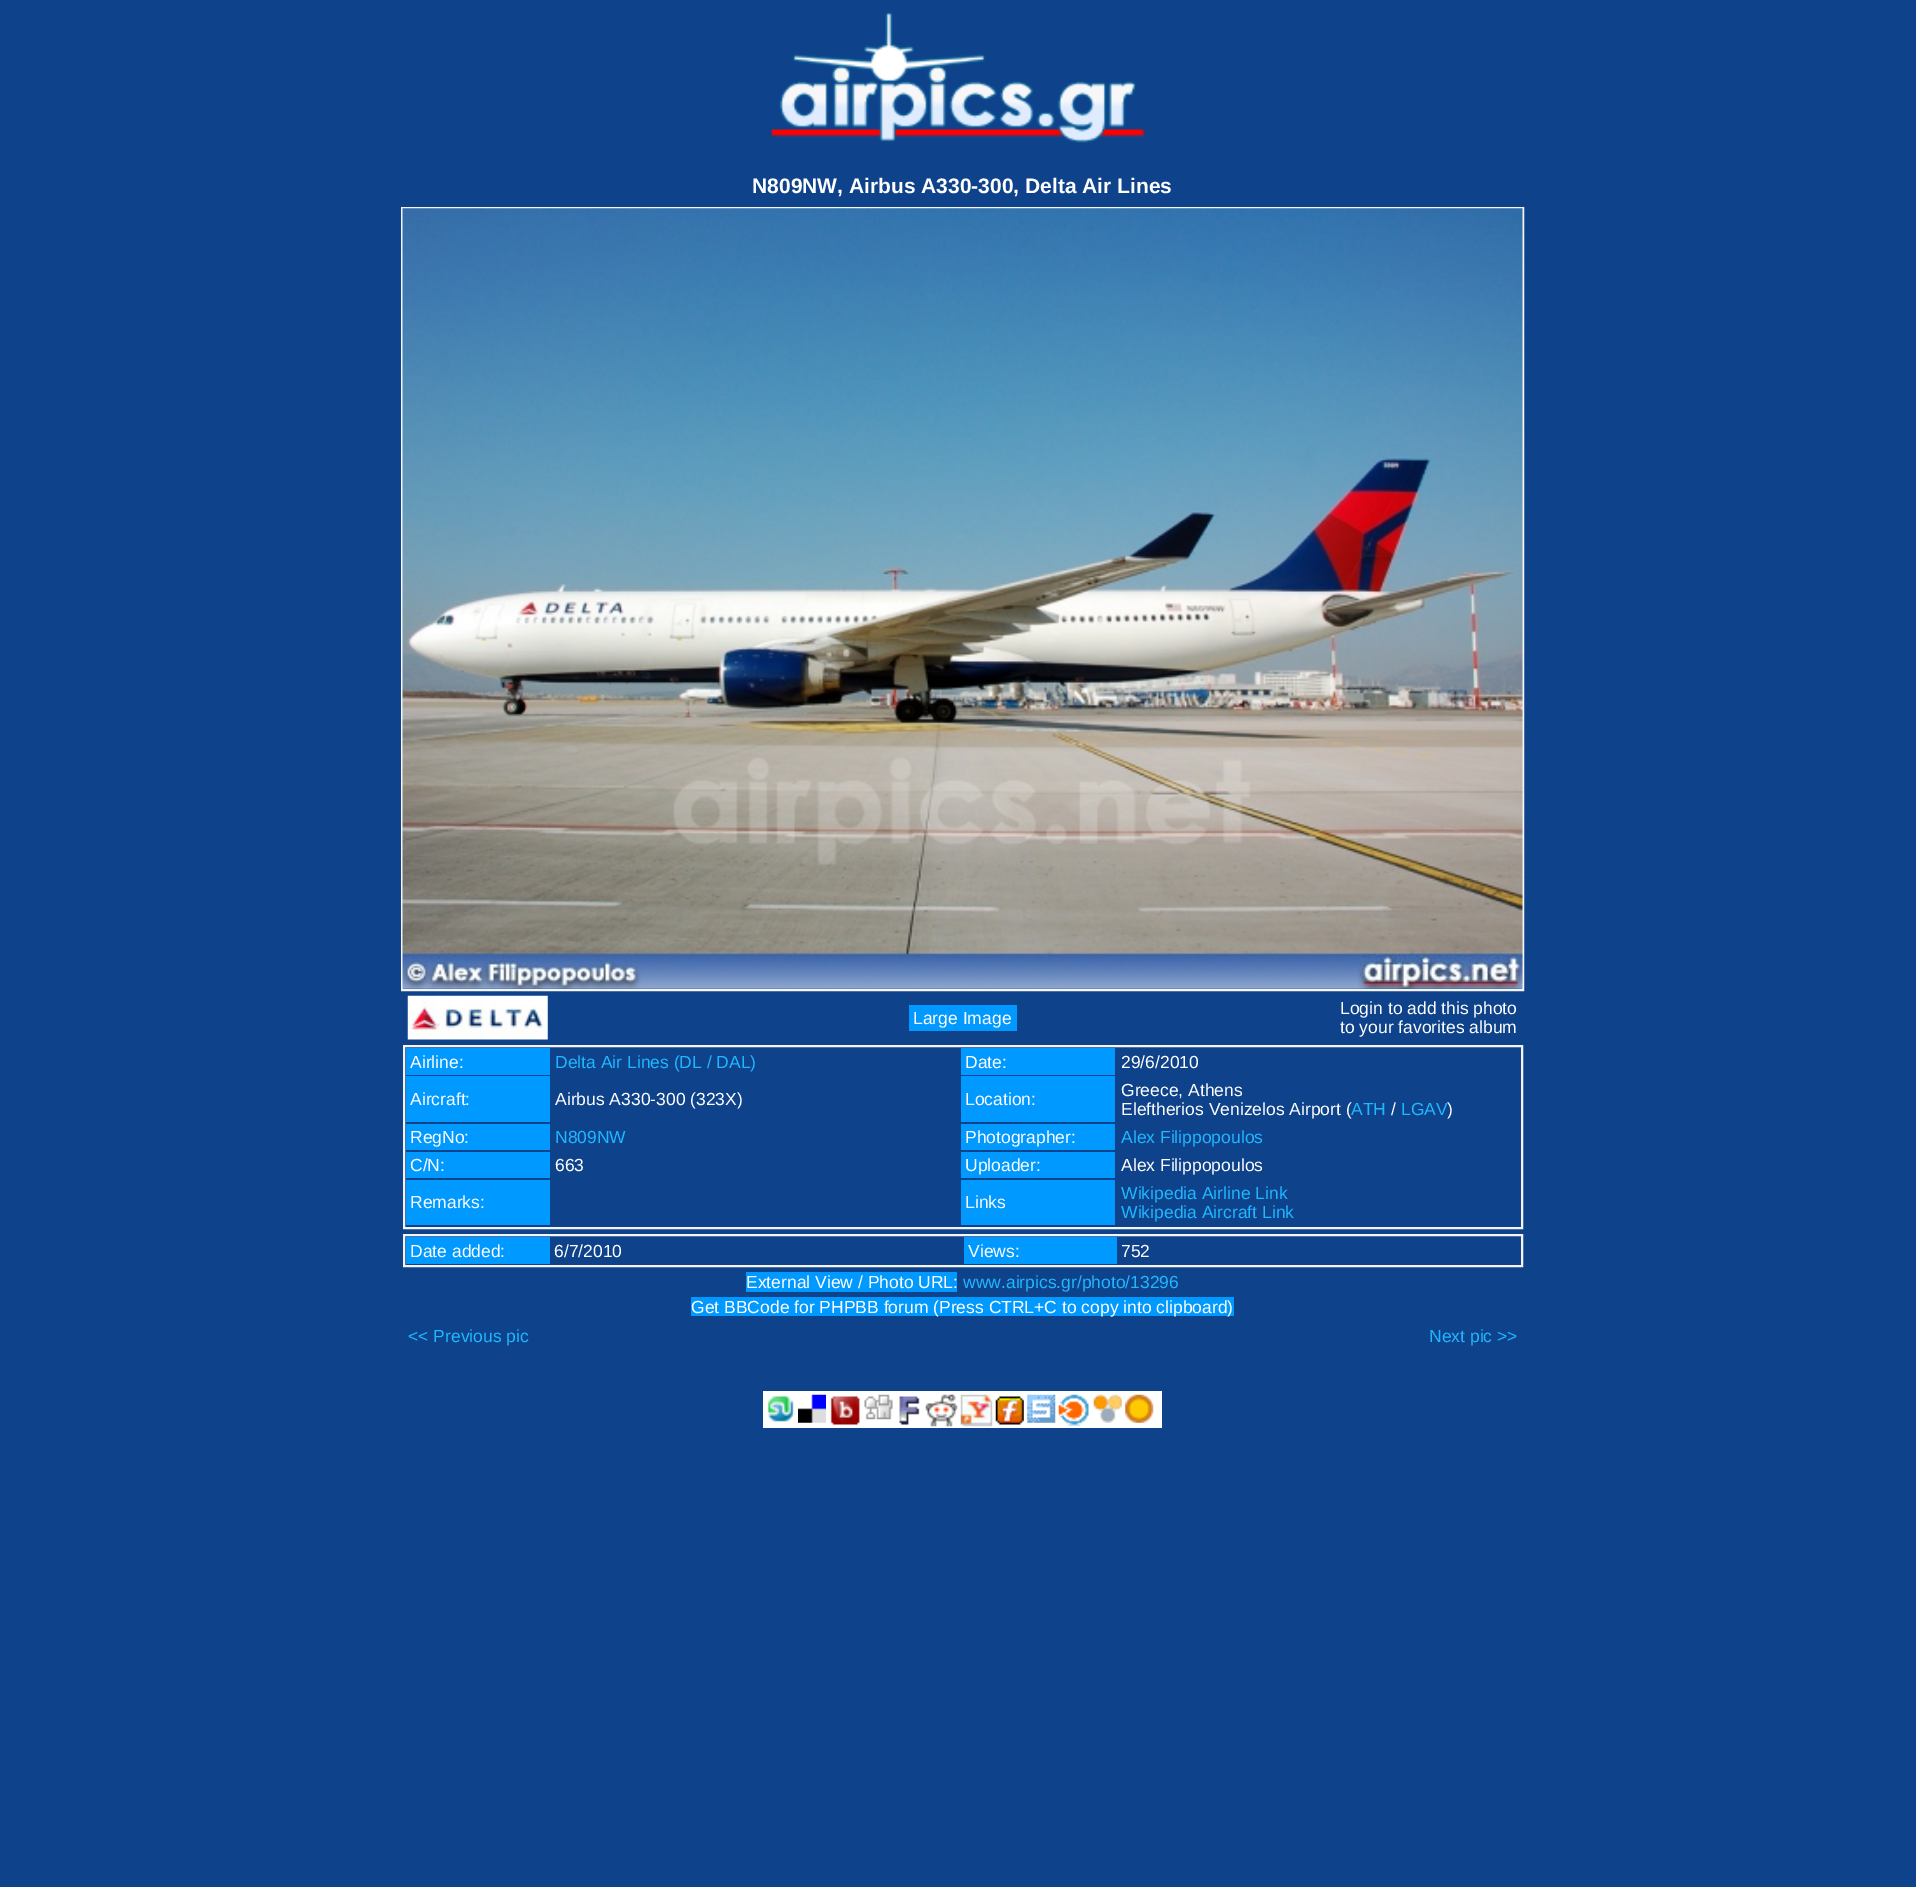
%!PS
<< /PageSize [1916 1887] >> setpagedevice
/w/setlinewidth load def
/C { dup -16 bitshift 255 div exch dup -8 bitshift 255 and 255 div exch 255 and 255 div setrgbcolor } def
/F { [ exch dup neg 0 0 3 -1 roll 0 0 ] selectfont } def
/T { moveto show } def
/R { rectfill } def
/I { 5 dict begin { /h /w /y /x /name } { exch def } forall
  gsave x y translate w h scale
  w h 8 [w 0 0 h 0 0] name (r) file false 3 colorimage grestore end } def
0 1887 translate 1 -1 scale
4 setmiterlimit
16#0E428B C
0 0 1916 1887 R
(1.rgb) 771 12 374 131 I
/LiberationSans-Bold 21 F
16#FFFFFF C
(N809NW, Airbus A330-300, Delta Air Lines) 752 193 T
16#F5F5F5 C
2 w
402 208 1121 782 rectstroke
(2.rgb) 402 208 1121 781 I
(3.rgb) 407 995 141 45 I
16#0099FF C
909 1005 108 26 R
/LiberationSans-Regular 17.5 F
16#FFFFFF C
(Large Image) 913 1024 T
(Login to add this photo) 1340 1014 T
(to your favorites album) 1340 1033 T
16#F5F5F5 C
404 1046 1118 182 rectstroke
16#0099FF C
406 1048 144 27 R
16#FFFFFF C
(Airline:) 410 1068 T
16#1FB7FF C
(Delta Air Lines \(DL / DAL\)) 555 1068 T
16#0099FF C
961 1048 154 27 R
16#FFFFFF C
(Date:) 965 1068 T
(29/6/2010) 1121 1068 T
16#0099FF C
406 1076 144 46 R
16#FFFFFF C
(Aircraft:) 410 1105 T
(Airbus A330-300 \(323X\)) 555 1105 T
16#0099FF C
961 1076 154 46 R
16#FFFFFF C
(Location:) 965 1105 T
(Greece, Athens) 1121 1096 T
(Eleftherios Venizelos Airport \() 1121 1115 T
16#1FB7FF C
(ATH) 1351 1115 T
16#FFFFFF C
(/) 1391 1115 T
16#1FB7FF C
(LGAV) 1401 1115 T
16#FFFFFF C
(\)) 1447 1115 T
16#0099FF C
406 1124 144 26 R
16#FFFFFF C
(RegNo:) 410 1143 T
16#1FB7FF C
(N809NW) 555 1143 T
16#0099FF C
961 1124 154 26 R
16#FFFFFF C
(Photographer:) 965 1143 T
16#1FB7FF C
(Alex Filippopoulos) 1121 1143 T
16#0099FF C
406 1152 144 26 R
16#FFFFFF C
(C/N:) 410 1171 T
(663) 555 1171 T
16#0099FF C
961 1152 154 26 R
16#FFFFFF C
(Uploader:) 965 1171 T
(Alex Filippopoulos) 1121 1171 T
16#0099FF C
406 1180 144 45 R
16#FFFFFF C
(Remarks:) 410 1208 T
16#0099FF C
961 1180 154 45 R
16#FFFFFF C
(Links) 965 1208 T
16#1FB7FF C
(Wikipedia Airline Link) 1121 1199 T
(Wikipedia Aircraft Link) 1121 1218 T
16#F5F5F5 C
404 1235 1118 31 rectstroke
16#0099FF C
406 1237 144 27 R
16#FFFFFF C
(Date added:) 410 1257 T
(6/7/2010) 554 1257 T
16#0099FF C
964 1237 153 27 R
16#FFFFFF C
(Views:) 968 1257 T
(752) 1121 1257 T
16#0099FF C
746 1272 211 20 R
16#FFFFFF C
(External View / Photo URL:) 746 1288 T
16#1FB7FF C
(www.airpics.gr/photo/13296) 963 1288 T
16#0099FF C
691 1297 543 19 R
16#FFFFFF C
(Get BBCode for PHPBB forum \(Press CTRL+C to copy into clipboard\)) 691 1313 T
16#1FB7FF C
(<< Previous pic) 408 1342 T
(Next pic >>) 1429 1342 T
16#FFFFFF C
763 1391 399 37 R
(4.rgb) 767 1396 27 26 I
(5.rgb) 798 1394 28 29 I
(6.rgb) 830 1396 30 29 I
(7.rgb) 864 1394 29 26 I
(8.rgb) 899 1396 21 29 I
(9.rgb) 925 1394 33 33 I
(10.rgb) 960 1394 33 33 I
(11.rgb) 995 1396 29 29 I
(12.rgb) 1027 1394 29 29 I
(13.rgb) 1058 1394 31 33 I
(14.rgb) 1093 1394 29 29 I
(15.rgb) 1125 1394 29 29 I
showpage
